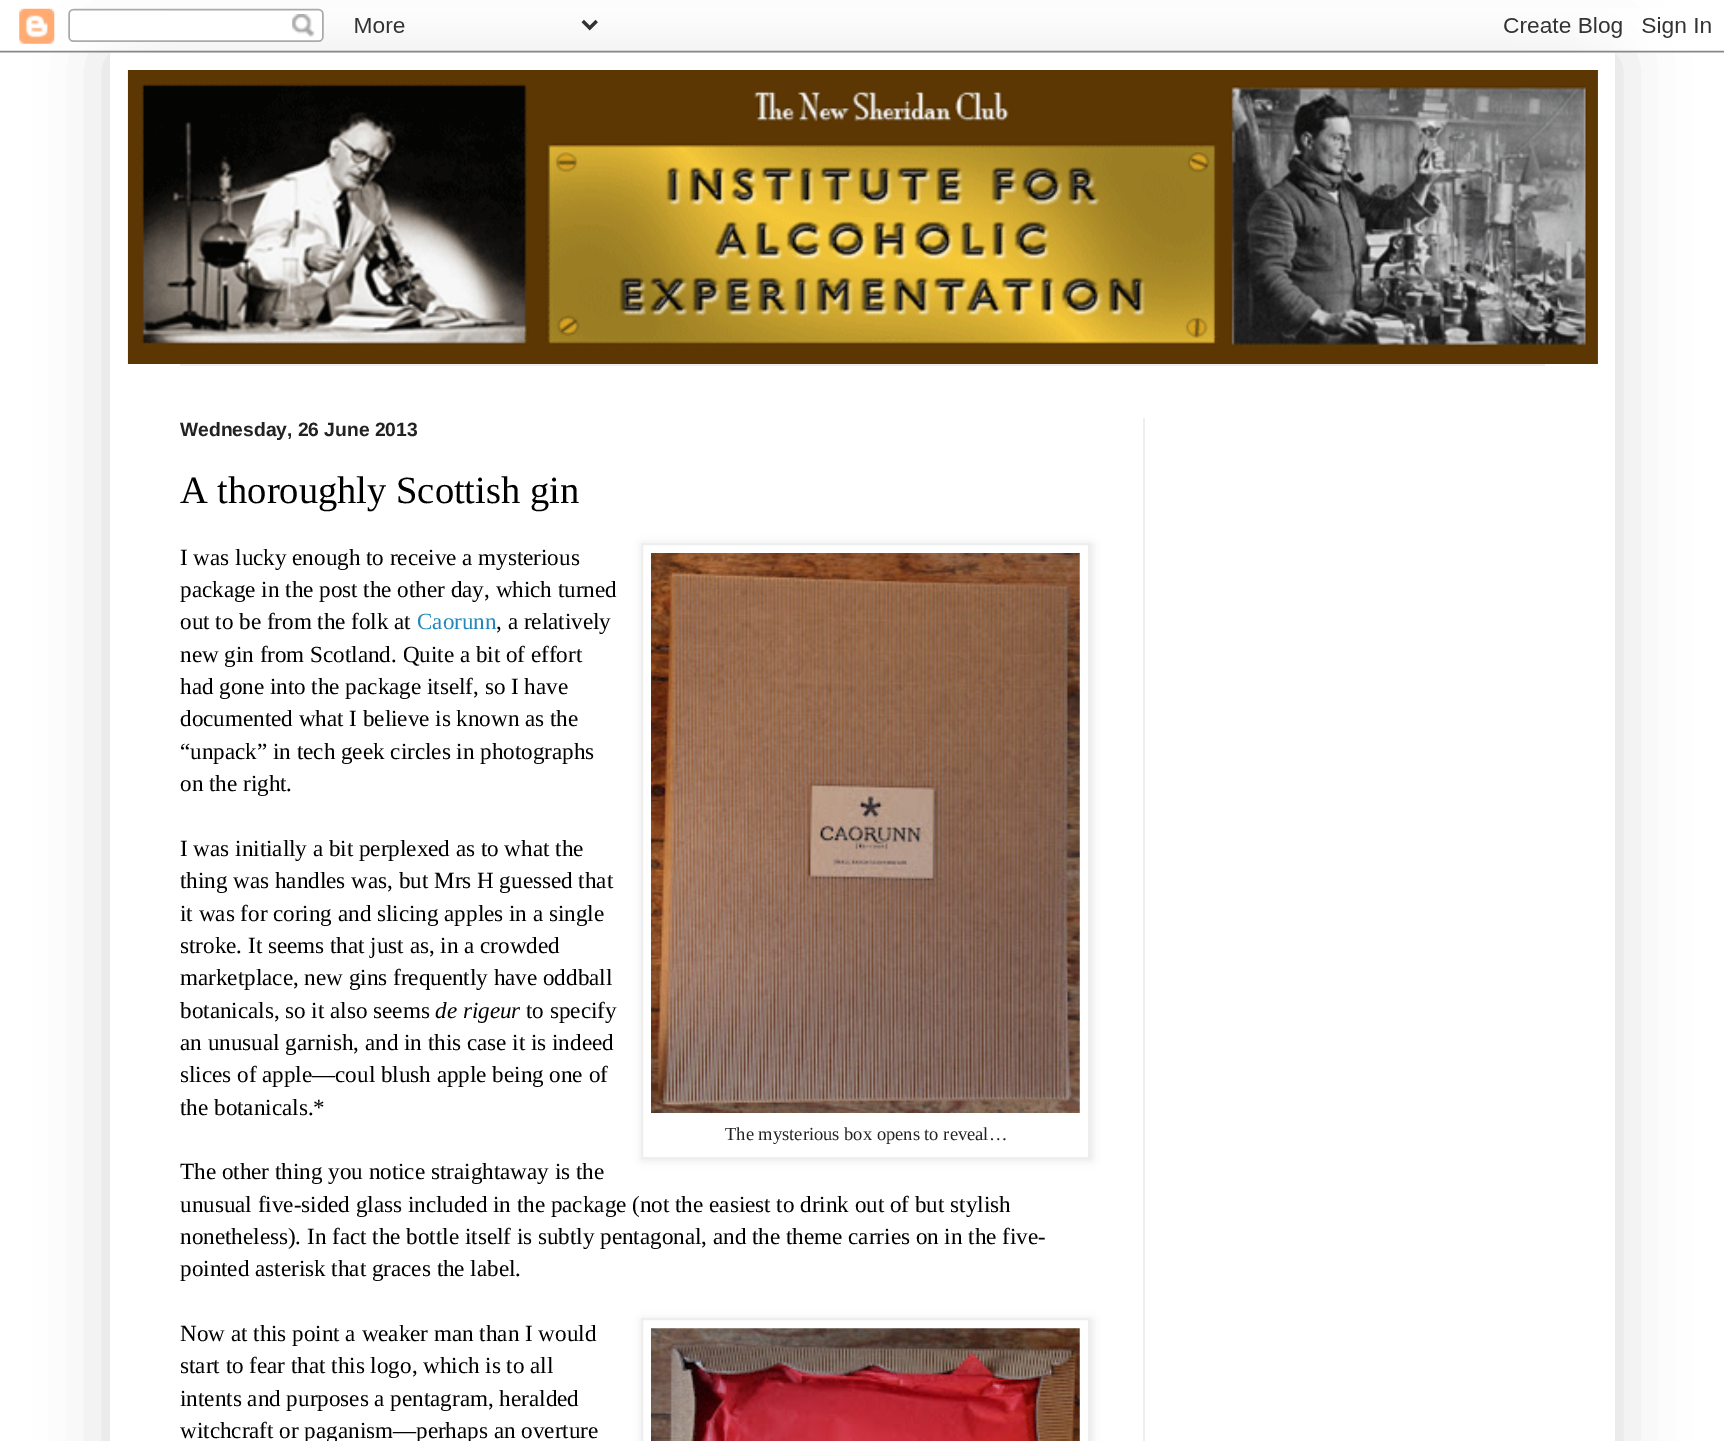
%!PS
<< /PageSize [1724 1441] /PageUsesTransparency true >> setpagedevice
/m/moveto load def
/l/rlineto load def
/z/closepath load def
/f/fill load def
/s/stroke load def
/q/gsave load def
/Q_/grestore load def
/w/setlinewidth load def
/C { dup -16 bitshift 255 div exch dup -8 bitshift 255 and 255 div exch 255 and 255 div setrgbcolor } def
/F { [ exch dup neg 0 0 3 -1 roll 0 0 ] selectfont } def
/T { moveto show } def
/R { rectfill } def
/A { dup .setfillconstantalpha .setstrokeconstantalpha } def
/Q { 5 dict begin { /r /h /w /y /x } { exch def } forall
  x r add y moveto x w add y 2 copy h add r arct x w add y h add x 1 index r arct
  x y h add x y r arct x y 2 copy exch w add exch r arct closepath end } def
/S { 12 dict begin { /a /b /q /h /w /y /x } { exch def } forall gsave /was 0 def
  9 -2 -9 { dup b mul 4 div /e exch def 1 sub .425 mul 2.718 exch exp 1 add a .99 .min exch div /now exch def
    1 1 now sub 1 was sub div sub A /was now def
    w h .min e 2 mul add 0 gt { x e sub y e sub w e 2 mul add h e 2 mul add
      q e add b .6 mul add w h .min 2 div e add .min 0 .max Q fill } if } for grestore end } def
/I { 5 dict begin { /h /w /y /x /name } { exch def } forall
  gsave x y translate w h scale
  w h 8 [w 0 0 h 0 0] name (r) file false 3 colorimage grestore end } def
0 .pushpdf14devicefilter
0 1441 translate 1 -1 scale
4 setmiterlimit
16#FFFFFF C
0 0 1724 1441 R
16#000000 C
110 53 1505 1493 0 35 .15 S
(1.rgb) 0 8 1724 45 I
16#FFFFFF C
110 53 1505 1388 R
16#5F5435 C
1597 70 1 294 R
(2.rgb) 127 70 1471 294 I
16#EEEEEE C
180 364 1365 2 R
/LiberationSans-Bold 19.25 F
16#222222 C
(Wednesday, 26 June 2013) 180 436 T
/LiberationSerif-Regular 38.5 F
16#000000 C
(A thoroughly Scottish gin) 180 503 T
/LiberationSerif-Regular 23.1 F
(I was lucky enough to receive a mysterious) 180 565 T
(package in the post the other day, which turned) 180 597 T
(out to be from the folk at) 180 629 T
16#2288BB C
(Caorunn) 417 629 T
16#000000 C
(, a relatively) 496 629 T
(new gin from Scotland. Quite a bit of effort) 180 662 T
(had gone into the package itself, so I have) 180 694 T
(documented what I believe is known as the) 180 726 T
(“unpack” in tech geek circles in photographs) 180 759 T
(on the right.) 180 791 T
(I was initially a bit perplexed as to what the) 180 856 T
(thing was handles was, but Mrs H guessed that) 180 888 T
(it was for coring and slicing apples in a single) 180 921 T
(stroke. It seems that just as, in a crowded) 180 953 T
(marketplace, new gins frequently have oddball) 180 985 T
(botanicals, so it also seems) 180 1018 T
/LiberationSerif-Italic 23.1 F
(de rigeur) 435 1018 T
/LiberationSerif-Regular 23.1 F
(to specify) 526 1018 T
(an unusual garnish, and in this case it is indeed) 180 1050 T
(slices of apple—coul blush apple being one of) 180 1082 T
(the botanicals.*) 180 1115 T
642 544 450 616 0 4.5 .1 S
16#FFFFFF C
642 544 m 447 0 l 0 614 l -447 0 l z q f Q_
16#EEEEEE C
2 w
s
(3.rgb) 651 553 429 560 I
/LiberationSerif-Regular 18.5 F
16#222222 C
(The mysterious box opens to reveal…) 725 1140 T
/LiberationSerif-Regular 23.1 F
16#000000 C
(The other thing you notice straightaway is the) 180 1179 T
(unusual five-sided glass included in the package \(not the easiest to drink out of but stylish) 180 1212 T
(nonetheless\). In fact the bottle itself is subtly pentagonal, and the theme carries on in the five-) 180 1244 T
(pointed asterisk that graces the label.) 180 1276 T
(Now at this point a weaker man than I would) 180 1341 T
q
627 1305 m 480 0 l 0 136 l -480 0 l z 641 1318 m 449 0 l 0 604 l -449 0 l z eoclip newpath
642 1320 450 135 0 4.5 .1 S
Q_
16#EEEEEE C
642 1319 447 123 rectstroke
(4.rgb) 651 1328 429 113 I
16#000000 C
(start to fear that this logo, which is to all) 180 1373 T
(intents and purposes a pentagram, heralded) 180 1406 T
(witchcraft or paganism—perhaps an overture) 180 1438 T
16#EEEEEE C
1143 418 2 1023 R
.poppdf14devicefilter showpage
